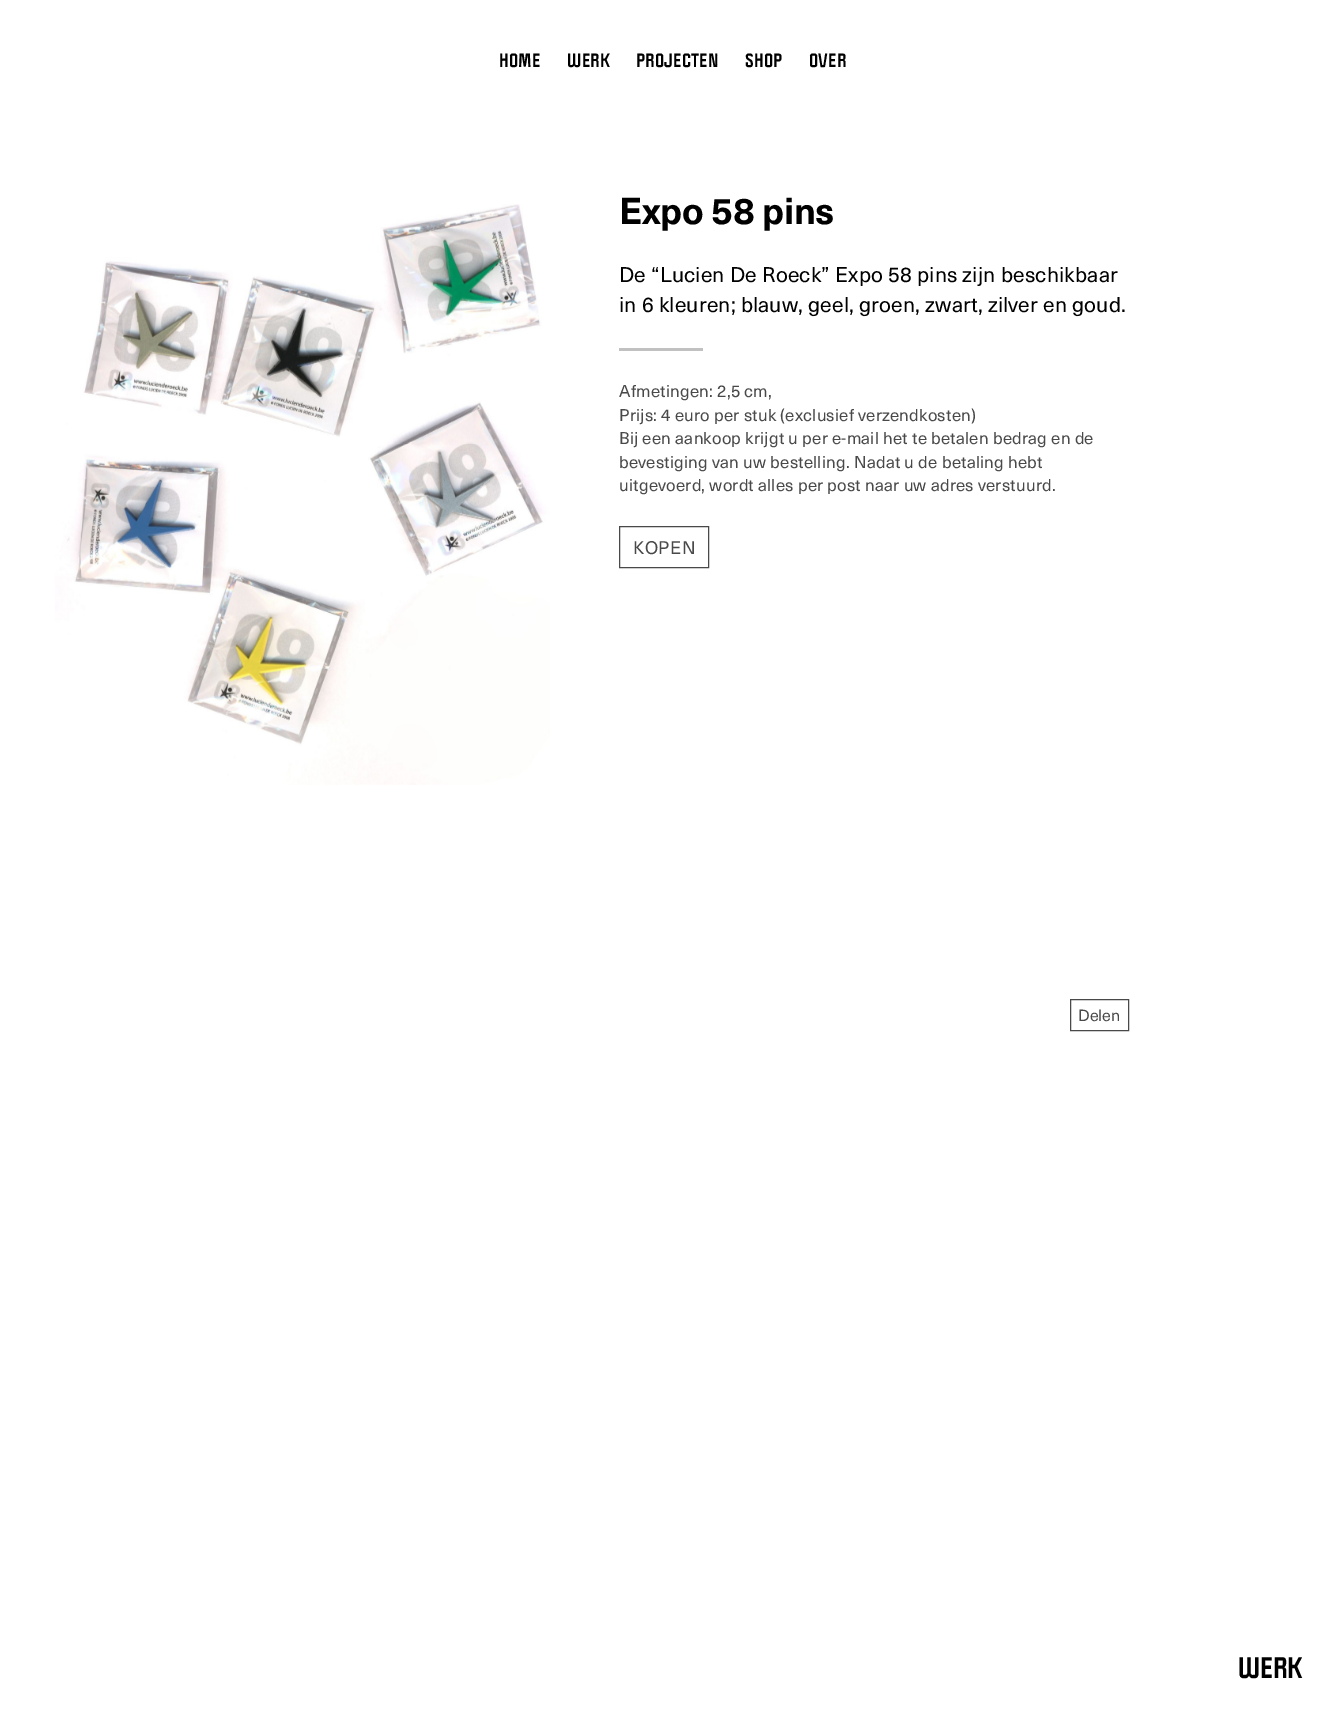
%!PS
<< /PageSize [1344 1724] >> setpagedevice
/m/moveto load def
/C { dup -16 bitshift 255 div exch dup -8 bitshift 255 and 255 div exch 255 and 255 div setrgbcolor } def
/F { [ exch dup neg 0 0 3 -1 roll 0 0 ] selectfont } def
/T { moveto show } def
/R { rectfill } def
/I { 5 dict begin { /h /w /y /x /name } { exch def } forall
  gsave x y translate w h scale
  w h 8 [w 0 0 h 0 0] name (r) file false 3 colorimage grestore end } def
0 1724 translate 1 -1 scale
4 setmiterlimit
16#FFFFFF C
0 0 1344 1724 R
/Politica-ExtraBold 16.8 F
16#000000 C
499 67 m .25 0 (HOME) ashow
567 67 m .25 0 (WERK) ashow
636 67 m .25 0 (PROJECTEN) ashow
745 67 m .25 0 (SHOP) ashow
809 67 m .25 0 (OVER) ashow
(1.rgb) 55 204 495 581 I
/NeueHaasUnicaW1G-Bold 36.75 F
619 224 m -.4 0 (Expo 58 pins) ashow
/NeueHaasUnicaW1G-Regular 21 F
619 282 m .2 0 (De “Lucien De Roeck” Expo 58 pins zijn beschikbaar) ashow
619 312 m .2 0 (in 6 kleuren; blauw, geel, groen, zwart, zilver en goud.) ashow
16#C1C1C1 C
619 348 84 3 R
/NeueHaasUnicaW1G-Regular 16.8 F
16#494949 C
619 397 m .2 0 (Afmetingen: 2,5 cm,) ashow
619 421 m .2 0 (Prijs: 4 euro per stuk \(exclusief verzendkosten\)) ashow
619 444 m .2 0 (Bij een aankoop krijgt u per e-mail het te betalen bedrag en de) ashow
619 468 m .2 0 (bevestiging van uw bestelling. Nadat u de betaling hebt) ashow
619 491 m .2 0 (uitgevoerd, wordt alles per post naar uw adres verstuurd.) ashow
619.5 526.5 89 41 rectstroke
/NeueHaasUnicaW1G-Regular 18 F
633 554 m .5 0 (KOPEN) ashow
1070.5 999.5 58 31 rectstroke
/NeueHaasUnicaW1G-Regular 16 F
(Delen) 1078 1021 T
/Politica-ExtraBold 26 F
16#000000 C
(WERK) 1238 1678 T
showpage
